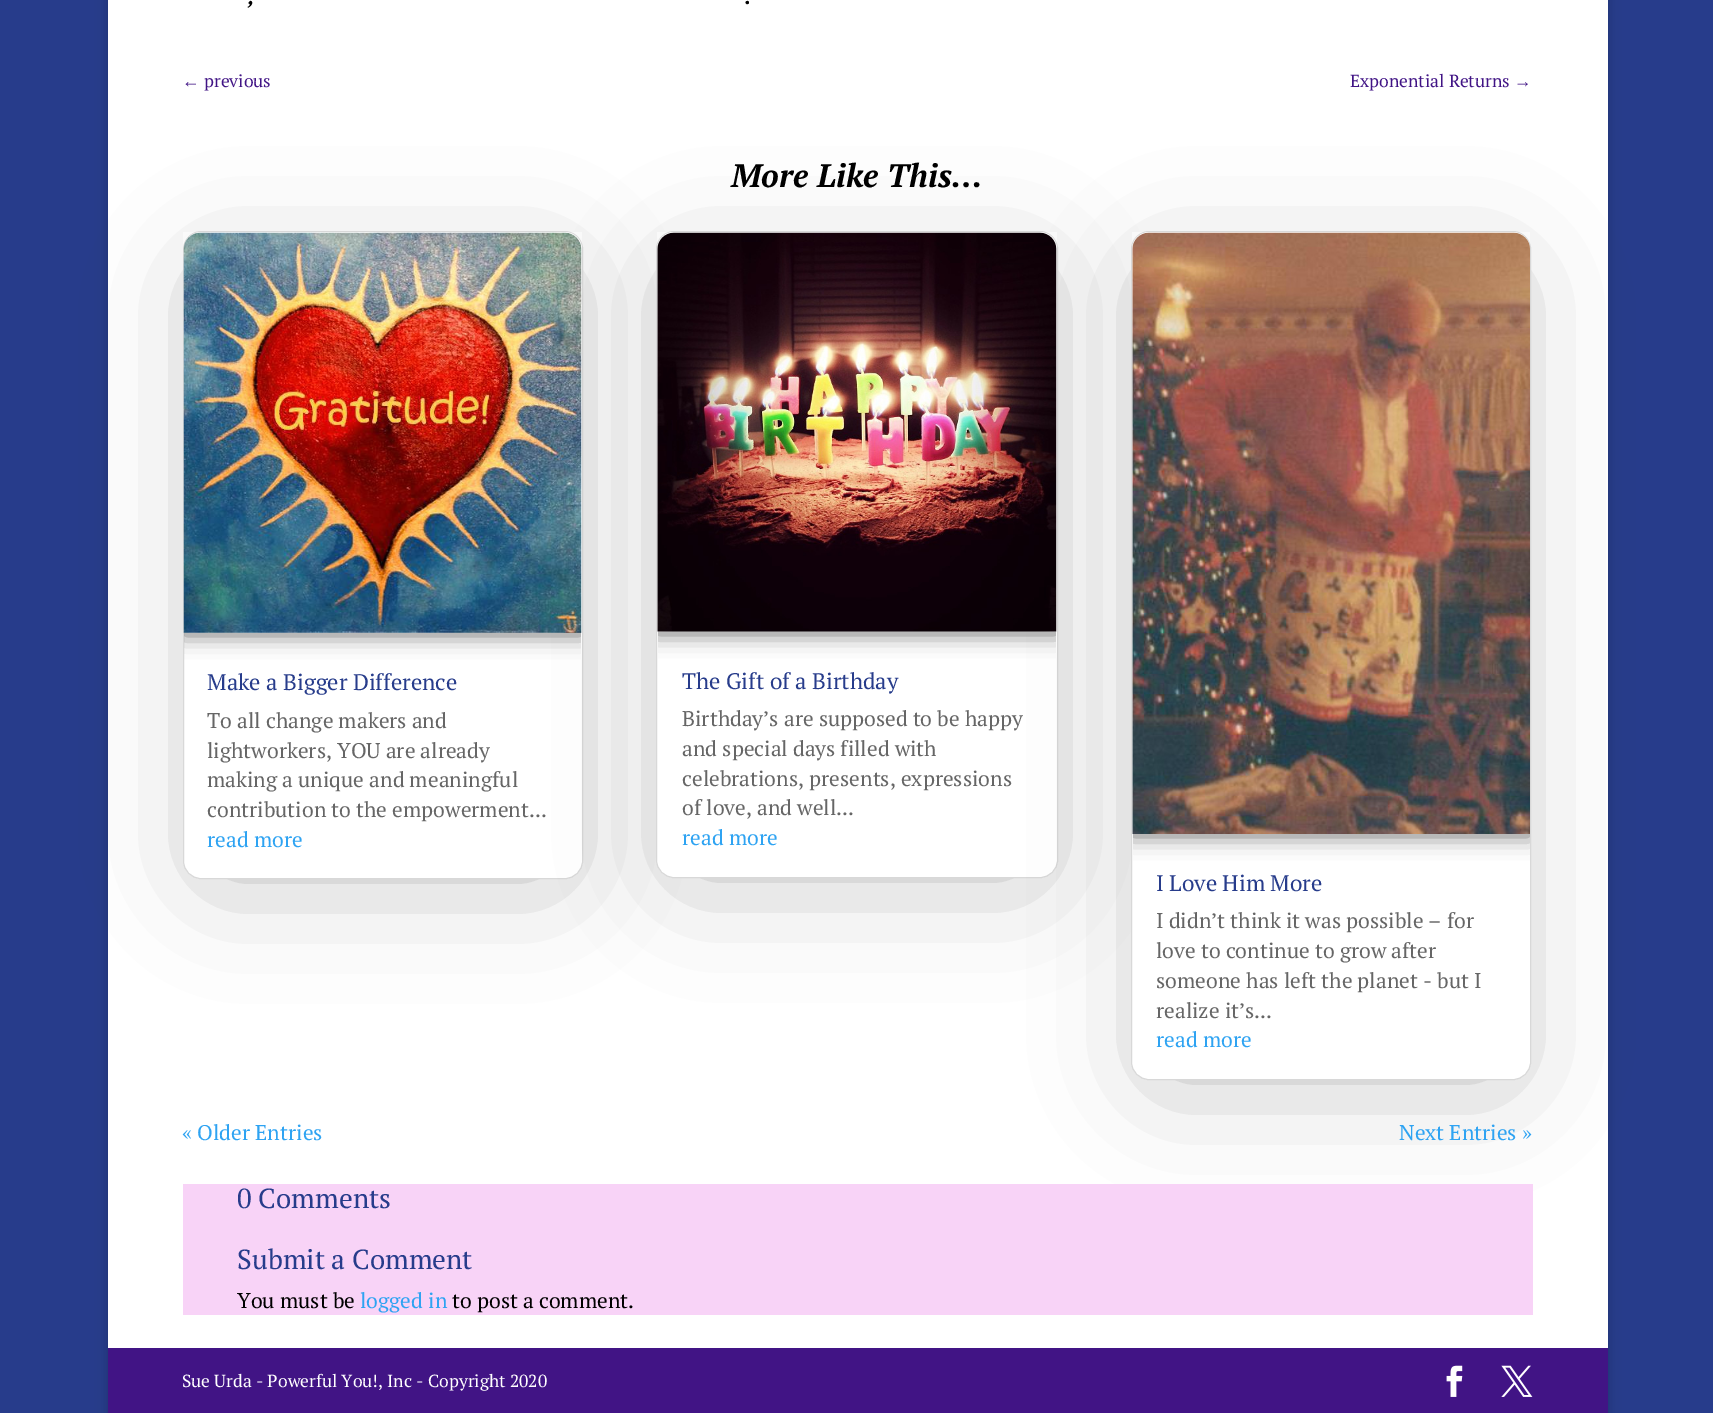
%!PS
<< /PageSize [1713 1413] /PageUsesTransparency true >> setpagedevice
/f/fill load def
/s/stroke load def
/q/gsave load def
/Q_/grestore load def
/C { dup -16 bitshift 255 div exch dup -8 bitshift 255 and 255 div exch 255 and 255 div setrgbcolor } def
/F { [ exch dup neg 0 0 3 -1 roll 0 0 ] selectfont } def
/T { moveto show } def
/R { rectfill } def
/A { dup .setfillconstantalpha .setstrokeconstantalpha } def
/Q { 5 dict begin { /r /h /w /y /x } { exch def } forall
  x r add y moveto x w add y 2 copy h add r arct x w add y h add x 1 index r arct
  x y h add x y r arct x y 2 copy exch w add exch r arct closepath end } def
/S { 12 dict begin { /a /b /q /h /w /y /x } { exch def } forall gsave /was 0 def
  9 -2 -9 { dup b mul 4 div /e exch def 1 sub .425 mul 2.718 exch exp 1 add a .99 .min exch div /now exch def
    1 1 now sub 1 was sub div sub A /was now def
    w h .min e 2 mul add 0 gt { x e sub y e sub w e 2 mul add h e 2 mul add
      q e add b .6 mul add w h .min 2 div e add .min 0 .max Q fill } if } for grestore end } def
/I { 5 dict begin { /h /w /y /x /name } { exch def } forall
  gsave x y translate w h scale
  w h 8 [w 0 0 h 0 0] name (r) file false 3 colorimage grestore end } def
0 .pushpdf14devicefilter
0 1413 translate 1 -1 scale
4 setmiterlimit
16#273C8B C
0 0 1713 1413 R
16#000000 C
108 -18 1500 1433 0 6 .2 S
16#FFFFFF C
108 0 1500 1348 R
/PTSerif-BoldItalic 21.25 F
16#000000 C
(,) 248 4 T
(.) 745 4 T
/LiberationSerif-Regular 17.5 F
16#411485 C
(←) 182 87 T
/PTSerif-Regular 17.5 F
(previous) 204 87 T
(Exponential Returns) 1350 87 T
/LiberationSerif-Regular 17.5 F
(→) 1514 87 T
/PTSerif-BoldItalic 32.5 F
16#000000 C
(More Like This…) 731 187 T
213 281 340 588 0 60 .3 S
16#FFFFFF C
183.5 231.5 399 647 17.5 Q q f Q_
16#D8D8D8 C
s
q
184 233 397 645 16 Q clip newpath
16#000000 C
183 234 400 401 0 11 .3 S
183 234 400 401 0 11 .3 S
Q_
16#000000 C
686 281 342 587 0 60 .3 S
(1.rgb) 183 232 399 401 I
/PTSerif-Regular 22.5 F
16#273C8B C
(Make a Bigger Difference) 207 690 T
/PTSerif-Regular 21.25 F
16#666666 C
(To all change makers and) 207 728 T
(lightworkers, YOU are already) 207 758 T
(making a unique and meaningful) 207 787 T
(contribution to the empowerment...) 207 817 T
16#2EA3F2 C
(read more) 207 847 T
16#FFFFFF C
656.5 231.5 401 646 17.5 Q q f Q_
16#D8D8D8 C
s
q
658 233 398 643 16 Q clip newpath
16#000000 C
656 234 402 400 0 11 .3 S
656 234 402 400 0 11 .3 S
Q_
16#000000 C
1161 281 340 789 0 60 .3 S
(2.rgb) 657 232 400 400 I
/PTSerif-Regular 22.5 F
16#273C8B C
(The Gift of a Birthday) 682 689 T
/PTSerif-Regular 21.25 F
16#666666 C
(Birthday’s are supposed to be happy) 682 726 T
(and special days filled with) 682 756 T
(celebrations, presents, expressions) 682 786 T
(of love, and well...) 682 815 T
16#2EA3F2 C
(read more) 682 845 T
16#FFFFFF C
1131.5 231.5 399 848 17.5 Q q f Q_
16#D8D8D8 C
s
q
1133 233 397 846 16 Q clip newpath
16#000000 C
1131 234 400 602 0 11 .3 S
1131 234 400 602 0 11 .3 S
Q_
(3.rgb) 1132 232 398 602 I
/PTSerif-Regular 22.5 F
16#273C8B C
(I Love Him More) 1156 891 T
/PTSerif-Regular 21.25 F
16#666666 C
(I didn’t think it was possible – for) 1156 928 T
(love to continue to grow after) 1156 958 T
(someone has left the planet - but I) 1156 988 T
(realize it’s...) 1156 1018 T
16#2EA3F2 C
(read more) 1156 1047 T
(« Older Entries) 182 1140 T
(Next Entries ») 1399 1140 T
16#F8D3F7 C
183 1184 1350 131 R
/PTSerif-Regular 27.5 F
16#273C8B C
(0 Comments) 237 1208 T
(Submit a Comment) 237 1269 T
/PTSerif-Regular 21.25 F
16#000000 C
(You must be) 237 1308 T
16#2EA3F2 C
(logged in) 360 1308 T
16#000000 C
(to post a comment.) 452 1308 T
16#411485 C
108 1348 1500 65 R
/PTSerif-Regular 17.5 F
16#FFFFFF C
(Sue Urda - Powerful You!, Inc - Copyright 2020) 182 1387 T
(4.rgb) 1446 1365 17 32 I
(5.rgb) 1501 1365 32 32 I
.poppdf14devicefilter showpage
